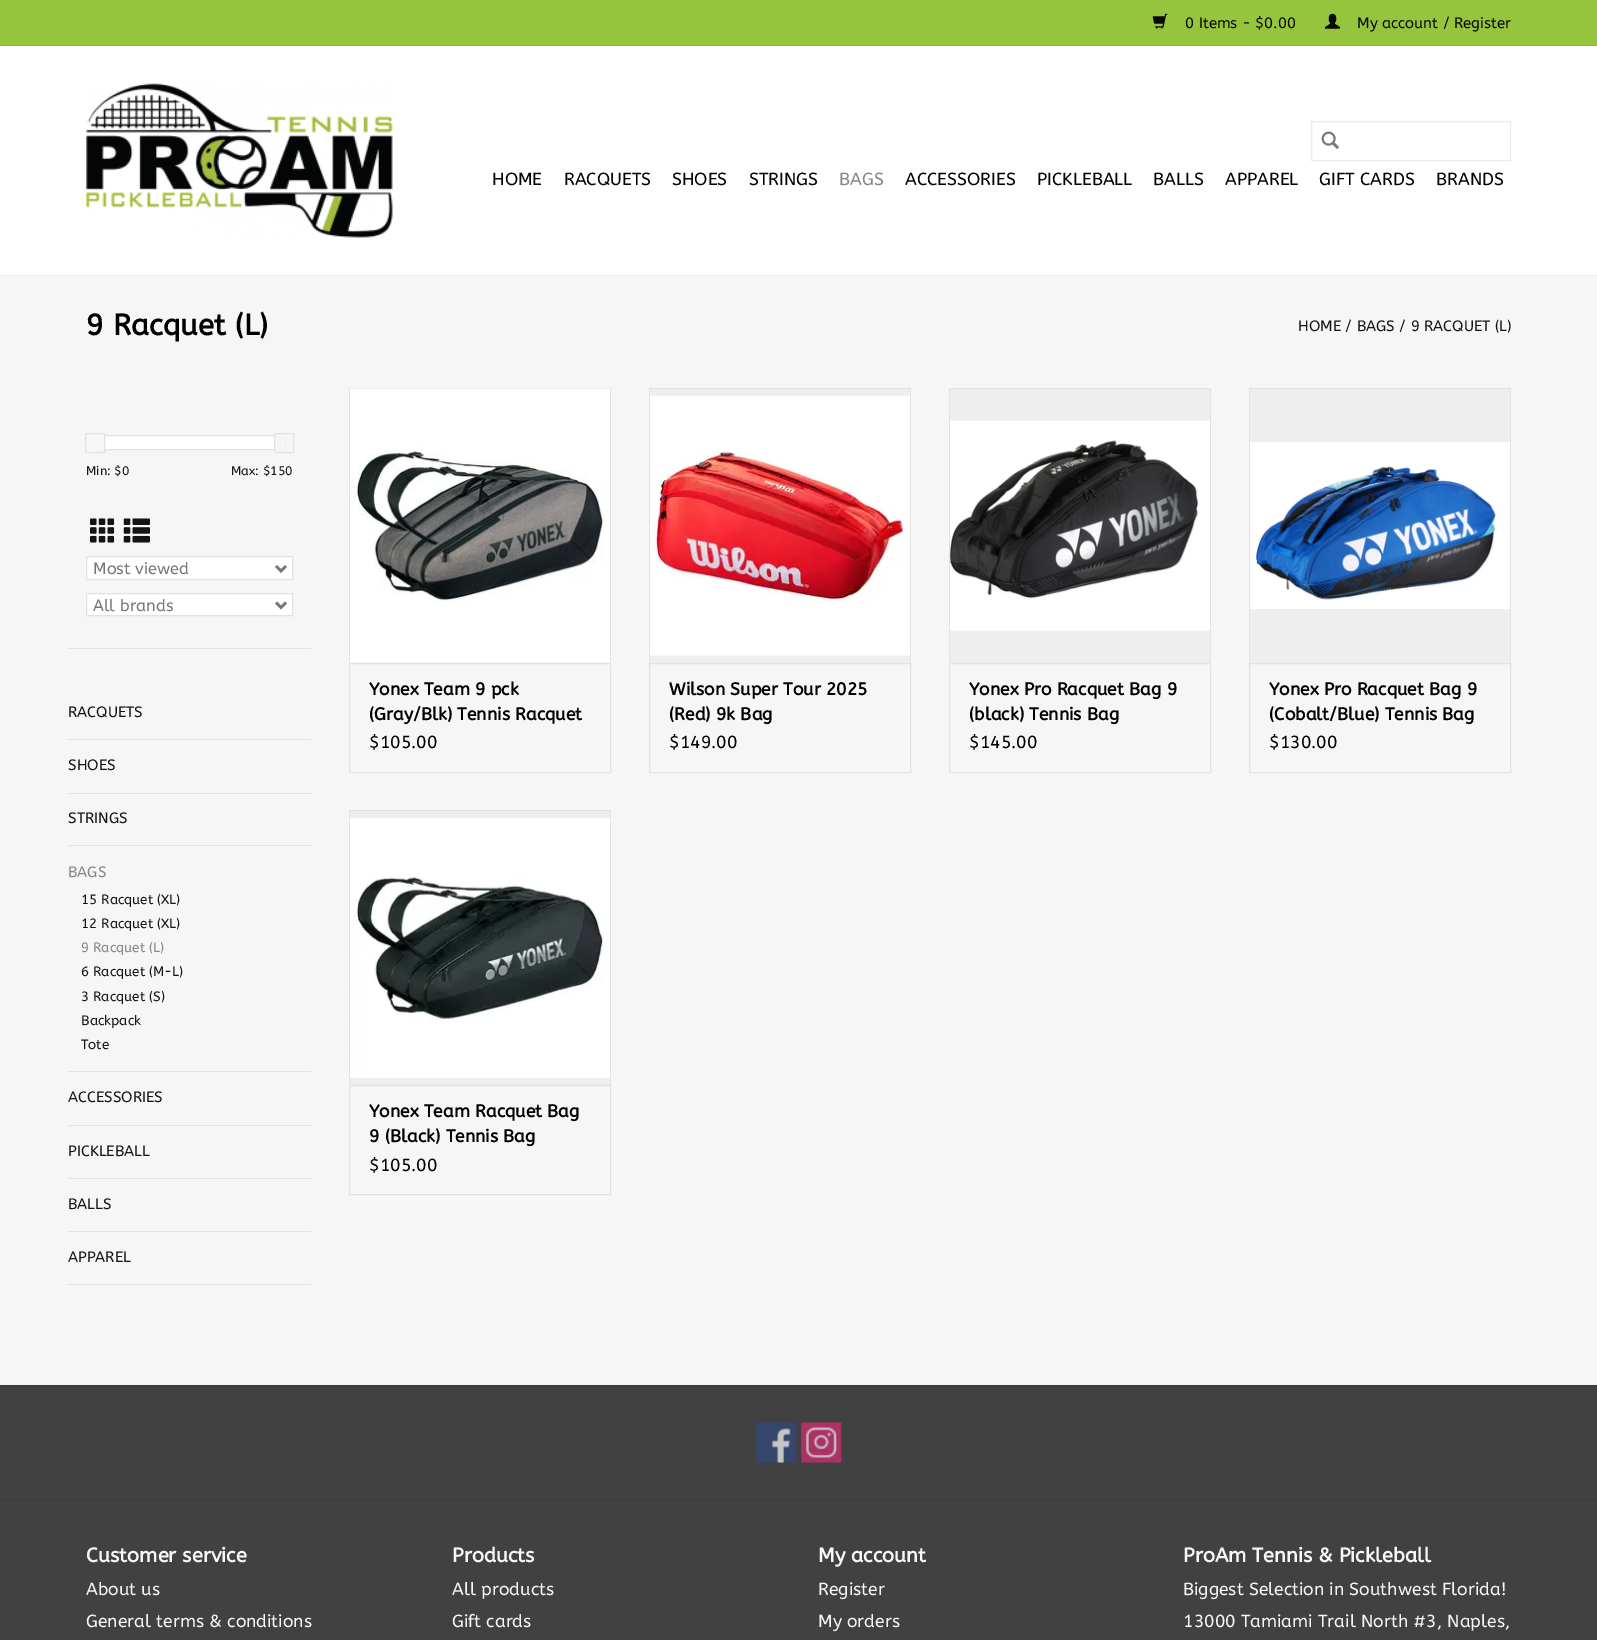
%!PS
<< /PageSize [1597 1640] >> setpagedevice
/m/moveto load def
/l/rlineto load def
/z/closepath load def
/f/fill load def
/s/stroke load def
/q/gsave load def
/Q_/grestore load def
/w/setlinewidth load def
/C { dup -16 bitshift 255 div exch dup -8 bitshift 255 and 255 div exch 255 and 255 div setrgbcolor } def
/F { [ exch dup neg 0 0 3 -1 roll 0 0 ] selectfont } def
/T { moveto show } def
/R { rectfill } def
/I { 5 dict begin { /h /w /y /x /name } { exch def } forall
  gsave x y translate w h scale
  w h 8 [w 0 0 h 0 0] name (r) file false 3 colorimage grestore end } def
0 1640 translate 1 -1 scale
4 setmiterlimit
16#F6F6F6 C
0 0 1597 1640 R
16#FFFFFF C
0 46 1597 229 R
16#EAEAEA C
0 275 1597 1 R
16#95C43D C
0 0 1597 45 R
16#8AB638 C
0 45 1597 1 R
(1.rgb) 1152 13 16 16 I
/ABeeZee-Regular 15 F
16#0A0A0A C
(0 Items - $0.00) 1185 28 T
(2.rgb) 1325 13 15 16 I
(My account / Register) 1357 28 T
(3.rgb) 86 83 307 155 I
16#EAEAEA C
1311.5 121.5 199 39 rectstroke
(4.rgb) 1321 131 18 18 I
/ABeeZee-Regular 17.5 F
16#000000 C
(HOME) 492 185 T
(RACQUETS) 564 185 T
(SHOES) 672 185 T
(STRINGS) 749 185 T
16#8D8484 C
(BAGS) 839 185 T
16#000000 C
(ACCESSORIES) 905 185 T
(PICKLEBALL) 1037 185 T
(BALLS) 1153 185 T
(APPAREL) 1225 185 T
(GIFT CARDS) 1319 185 T
(BRANDS) 1436 185 T
/ABeeZee-Bold 29.5 F
(9 Racquet \(L\)) 86 335 T
/ABeeZee-Regular 15 F
16#141414 C
(HOME / BAGS / 9 RACQUET \(L\)) 1298 331 T
16#E2E2E2 C
68 648 243 1 R
16#FFFFFF C
105 436 169 13 R
16#E2E2E2 C
96.5 435.5 188 14 rectstroke
16#F6F6F6 C
96 435 8 15 R
16#E2E2E2 C
85.5 433.5 19 19 rectstroke
16#F6F6F6 C
275 435 10 15 R
16#E2E2E2 C
274.5 433.5 19 19 rectstroke
/ABeeZee-Regular 12.5 F
16#141414 C
(Min: $0) 86 475 T
(Max: $150) 231 475 T
(5.rgb) 90 518 25 25 I
(6.rgb) 123 518 27 25 I
16#FFFFFF C
86.5 556.5 m 206 0 l 0 23 l -206 0 l z q f Q_
16#E2E2E2 C
s
16#777777 C
2.5 w
276 566 m 5 5 l 5 -5 l s
/ABeeZee-Regular 16.25 F
(Most viewed) 93 574 T
16#FFFFFF C
86.5 593.5 m 206 0 l 0 22 l -206 0 l z q f Q_
16#E2E2E2 C
1 w
s
16#777777 C
2.5 w
276 602.5 m 5 5 l 5 -5 l s
(All brands) 93 611 T
16#E2E2E2 C
68 739 243 1 R
/ABeeZee-Regular 15 F
16#141414 C
(RACQUETS) 68 717 T
16#E2E2E2 C
68 793 243 1 R
16#141414 C
(SHOES) 68 770 T
16#E2E2E2 C
68 845 243 1 R
16#141414 C
(STRINGS) 68 823 T
16#E2E2E2 C
68 1071 243 1 R
16#8D8484 C
(BAGS) 68 877 T
/ABeeZee-Regular 13.5 F
16#141414 C
(15 Racquet \(XL\)) 81 904 T
(12 Racquet \(XL\)) 81 928 T
16#8D8484 C
(9 Racquet \(L\)) 81 952 T
16#141414 C
(6 Racquet \(M-L\)) 81 976 T
(3 Racquet \(S\)) 81 1001 T
(Backpack) 81 1025 T
(Tote) 81 1049 T
16#E2E2E2 C
68 1125 243 1 R
/ABeeZee-Regular 15 F
16#141414 C
(ACCESSORIES) 68 1102 T
16#E2E2E2 C
68 1178 243 1 R
16#141414 C
(PICKLEBALL) 68 1156 T
16#E2E2E2 C
68 1231 243 1 R
16#141414 C
(BALLS) 68 1209 T
16#E2E2E2 C
68 1284 243 1 R
16#141414 C
(APPAREL) 68 1262 T
16#EEEEEE C
350 662 260 1 R
16#E2E2E2 C
349 388 262 1 R
610 388 1 275 R
349 388 1 275 R
(7.rgb) 350 388 260 275 I
1 w
349.5 663.5 261 109 rectstroke
/ABeeZee-Bold 17.5 F
16#000000 C
(Yonex Team 9 pck) 369 695 T
(\(Gray/Blk\) Tennis Racquet) 369 720 T
/ABeeZee-Regular 17.5 F
($105.00) 369 748 T
16#EEEEEE C
650 389 260 274 R
16#E2E2E2 C
649 388 262 1 R
910 388 1 275 R
649 388 1 275 R
(8.rgb) 650 395 260 261 I
649.5 663.5 261 109 rectstroke
/ABeeZee-Bold 17.5 F
16#000000 C
(Wilson Super Tour 2025) 669 695 T
(\(Red\) 9k Bag) 669 720 T
/ABeeZee-Regular 17.5 F
($149.00) 669 748 T
16#EEEEEE C
950 389 260 274 R
16#E2E2E2 C
949 388 262 1 R
1210 388 1 275 R
949 388 1 275 R
(9.rgb) 950 420 260 211 I
949.5 663.5 261 109 rectstroke
/ABeeZee-Bold 17.5 F
16#000000 C
(Yonex Pro Racquet Bag 9) 969 695 T
(\(black\) Tennis Bag) 969 720 T
/ABeeZee-Regular 17.5 F
($145.00) 969 748 T
16#EEEEEE C
1250 389 260 274 R
16#E2E2E2 C
1249 388 262 1 R
1510 388 1 275 R
1249 388 1 275 R
(10.rgb) 1250 442 260 167 I
1249.5 663.5 261 109 rectstroke
/ABeeZee-Bold 17.5 F
16#000000 C
(Yonex Pro Racquet Bag 9) 1269 695 T
(\(Cobalt/Blue\) Tennis Bag) 1269 720 T
/ABeeZee-Regular 17.5 F
($130.00) 1269 748 T
16#EEEEEE C
350 811 260 274 R
16#E2E2E2 C
349 810 262 1 R
610 810 1 275 R
349 810 1 275 R
(11.rgb) 350 818 260 260 I
349.5 1085.5 261 109 rectstroke
/ABeeZee-Bold 17.5 F
16#000000 C
(Yonex Team Racquet Bag) 369 1117 T
(9 \(Black\) Tennis Bag) 369 1142 T
/ABeeZee-Regular 17.5 F
($105.00) 369 1171 T
16#414141 C
0 1386 1597 254 R
16#3B3B3B C
0 1385 1597 1 R
(12.rgb) 756 1422 41 41 I
(13.rgb) 801 1422 41 41 I
0 1500 1597 1 R
/ABeeZee-Bold 20 F
16#F7F7F7 C
(Customer service) 86 1562 T
/ABeeZee-Regular 17.5 F
(About us) 86 1595 T
(General terms & conditions) 86 1627 T
/ABeeZee-Bold 20 F
(Products) 452 1562 T
/ABeeZee-Regular 17.5 F
(All products) 452 1595 T
(Gift cards) 452 1627 T
/ABeeZee-Bold 20 F
(My account) 818 1562 T
/ABeeZee-Regular 17.5 F
(Register) 818 1595 T
(My orders) 818 1627 T
/ABeeZee-Bold 20 F
(ProAm Tennis & Pickleball) 1183 1562 T
/ABeeZee-Regular 17.5 F
(Biggest Selection in Southwest Florida!) 1183 1595 T
(13000 Tamiami Trail North #3, Naples,) 1183 1627 T
showpage
